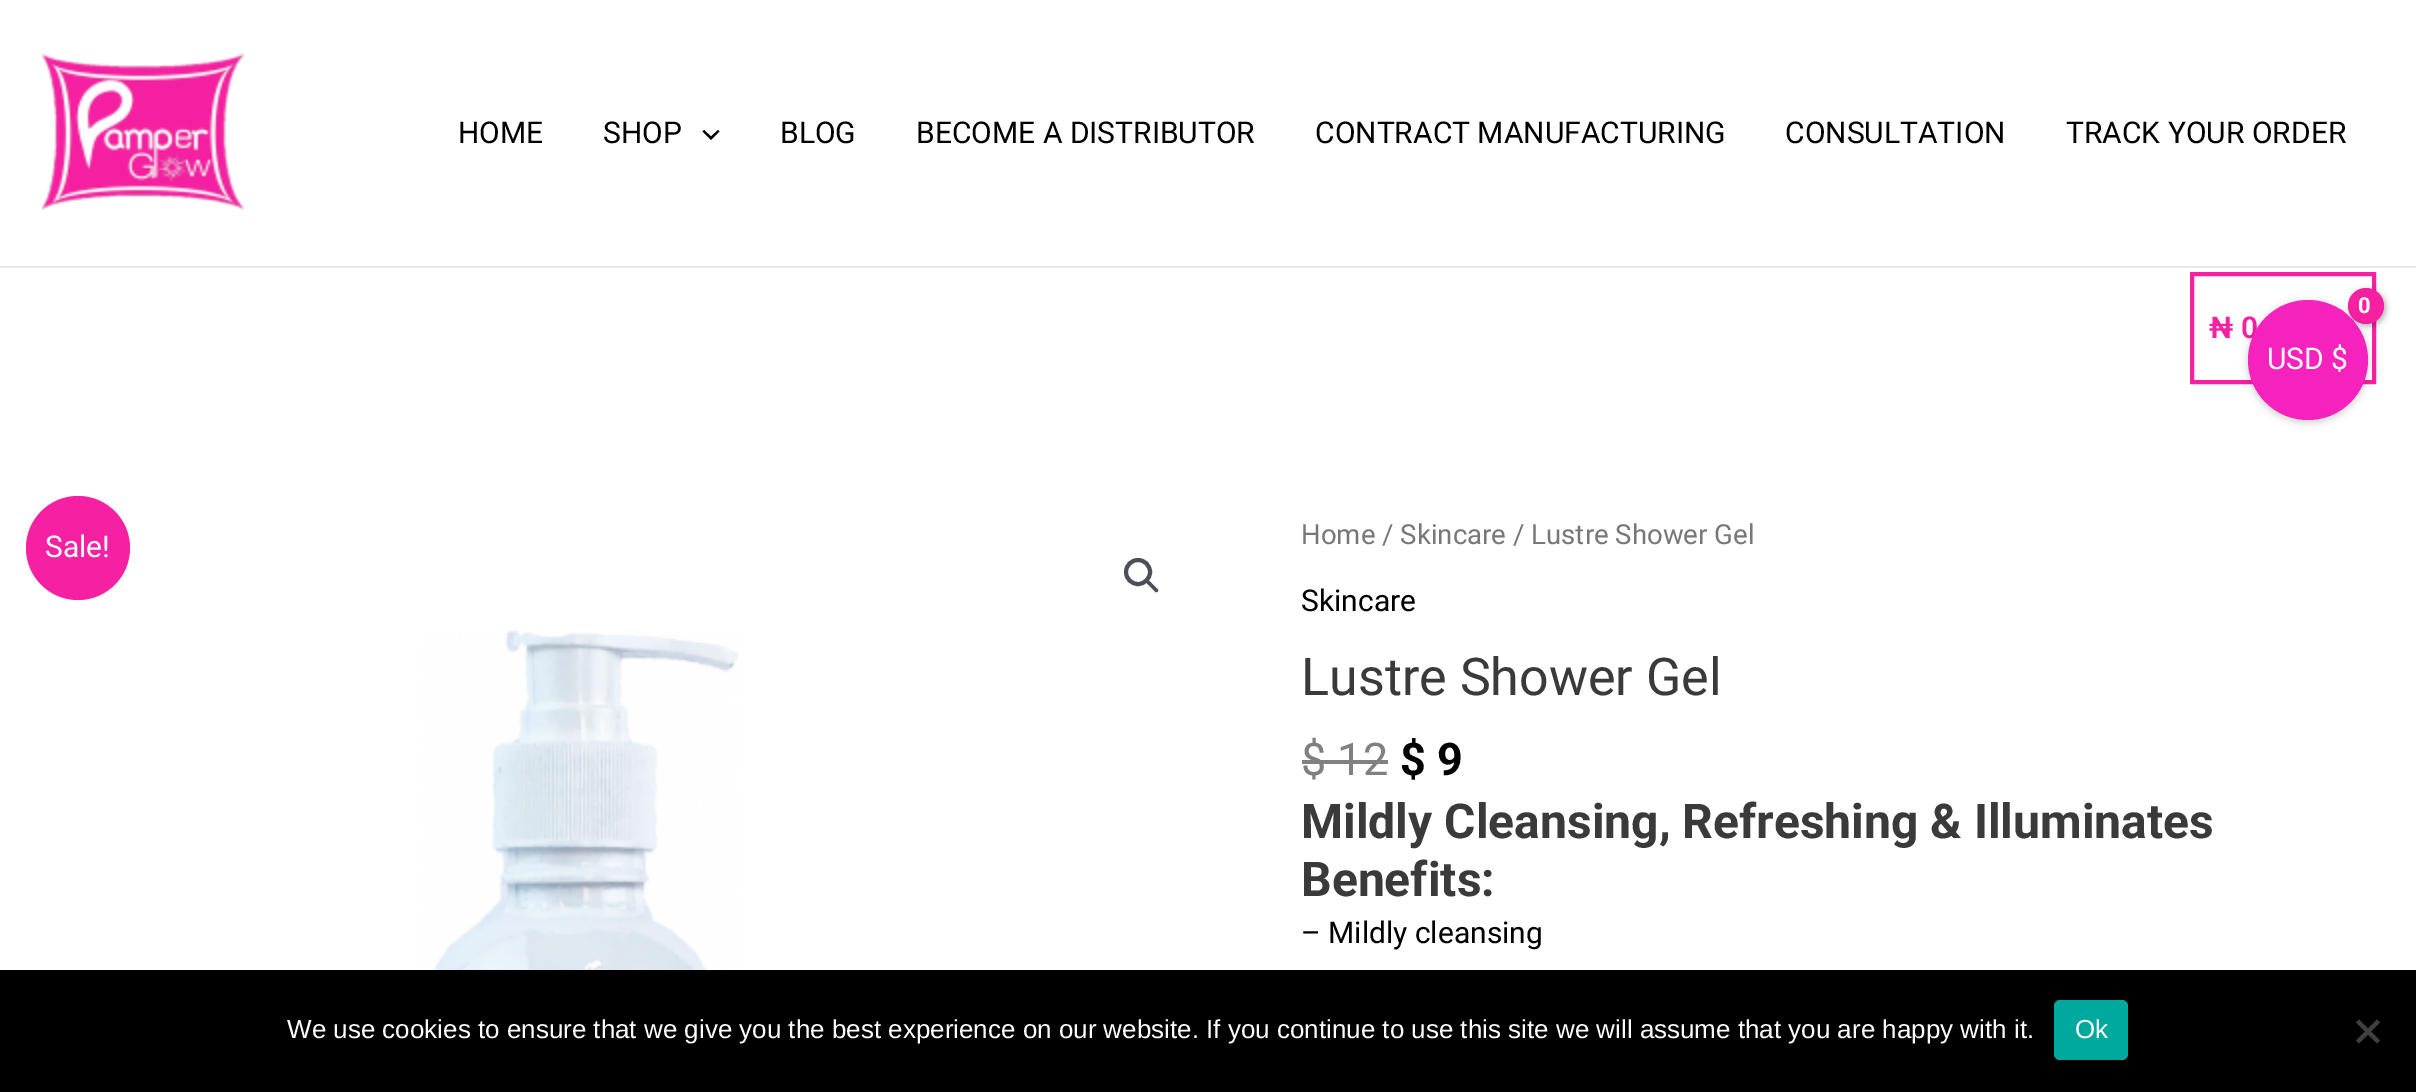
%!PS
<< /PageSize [2416 1092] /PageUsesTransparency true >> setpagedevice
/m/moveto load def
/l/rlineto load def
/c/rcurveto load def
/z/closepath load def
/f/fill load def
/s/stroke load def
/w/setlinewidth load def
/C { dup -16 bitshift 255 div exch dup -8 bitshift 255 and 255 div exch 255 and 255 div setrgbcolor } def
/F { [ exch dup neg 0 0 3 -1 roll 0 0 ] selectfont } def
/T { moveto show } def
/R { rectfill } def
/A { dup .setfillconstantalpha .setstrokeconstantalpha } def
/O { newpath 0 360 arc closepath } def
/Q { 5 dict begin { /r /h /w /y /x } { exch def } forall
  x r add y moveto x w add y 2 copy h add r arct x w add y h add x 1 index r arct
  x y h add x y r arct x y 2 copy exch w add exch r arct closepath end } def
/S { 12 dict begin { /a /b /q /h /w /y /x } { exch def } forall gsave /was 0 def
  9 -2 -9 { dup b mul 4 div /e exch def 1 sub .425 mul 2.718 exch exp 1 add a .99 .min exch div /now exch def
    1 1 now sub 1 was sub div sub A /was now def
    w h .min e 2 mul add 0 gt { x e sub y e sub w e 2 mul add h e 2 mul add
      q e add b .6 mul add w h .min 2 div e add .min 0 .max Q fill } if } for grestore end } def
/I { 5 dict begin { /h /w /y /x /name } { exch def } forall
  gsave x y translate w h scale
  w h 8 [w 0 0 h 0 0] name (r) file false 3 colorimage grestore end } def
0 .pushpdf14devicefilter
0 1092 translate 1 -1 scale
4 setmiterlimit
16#FFFFFF C
0 0 2416 1092 R
16#EAEAEA C
0 266 2416 2 R
(1.rgb) 41 53 204 158 I
/Roboto-Regular 30 F
16#000000 C
(HOME) 458 143 T
(SHOP) 603 143 T
702.5 131.5 m 8.5 8.5 l 8.5 -8.5 l -1.5 -1.5 l -7 6.5 l -7 -6.5 l z f
(BLOG) 780 143 T
(BECOME A DISTRIBUTOR) 916 143 T
(CONTRACT MANUFACTURING) 1315 143 T
(CONSULTATION) 1785 143 T
(TRACK YOUR ORDER) 2066 143 T
16#F620A2 C
4 w
2192 274 182 108 rectstroke
(2.rgb) 2338 308 16 14 I
16#000000 C
2350 290 36 36 18 3 .3 S
16#F620A2 C
2366 306 18 O f
/Roboto-Bold 22 F
16#FFFFFF C
2358 313 m -1 0 (0) ashow
/Roboto-SemiBold 30 F
16#F620A2 C
(₦ 0) 2209 338 T
78 548 52 O f
/Roboto-Regular 30 F
16#FFFFFF C
(Sale!) 45 557 T
/Roboto-Regular 27.6 F
16#777777 C
(Home / Skincare / Lustre Shower Gel) 1301 544 T
/Roboto-Regular 30 F
16#000000 C
(Skincare) 1301 611 T
/Roboto-Regular 52 F
16#3A3A3A C
(Lustre Shower Gel) 1301 695 T
/Roboto-Regular 45 F
16#808080 C
($ 12) 1301 775 T
1302 760 86 4 R
/Roboto-Bold 45 F
16#000000 C
($ 9) 1400 775 T
/Roboto-Bold 48 F
16#3A3A3A C
(Mildly Cleansing, Refreshing & Illuminates) 1301 838 T
(Benefits:) 1301 896 T
/Roboto-Regular 30 F
16#000000 C
(– Mildly cleansing) 1301 943 T
16#4B4F58 C
1138 572 12 O s
1146.5 580.5 m .5 -1 2 -1 2.5 0 c 8.5 8.5 l 1 .5 1 2 0 2.5 c -.5 1 -2 1 -2.5 0 c -8.5 -8.5 l -1 -.5 -1 -2 0 -2.5 c z f
(3.rgb) 421 630 318 340 I
16#000000 C
2248 302 120 120 60 4 .2 S
16#F522BD C
2308 360 60 O f
16#FFFFFF C
(USD $) 2267 369 T
16#000000 C
0 970 2416 122 R
/LiberationSans-Regular 26 F
16#FFFFFF C
(We use cookies to ensure that we give you the best experience on our website. If you continue to use this site we will assume that you are happy with it.) 287 1038 T
16#00A99D C
2054 1000 74 60 6 Q f
16#FFFFFF C
(Ok) 2075 1038 T
16#404040 C
2377 1019.5 m 3 3 l -21 21 l -3 -3 l z f
2356 1022.5 m 3 -3 l 21 21 l -3 3 l z f
.poppdf14devicefilter showpage
